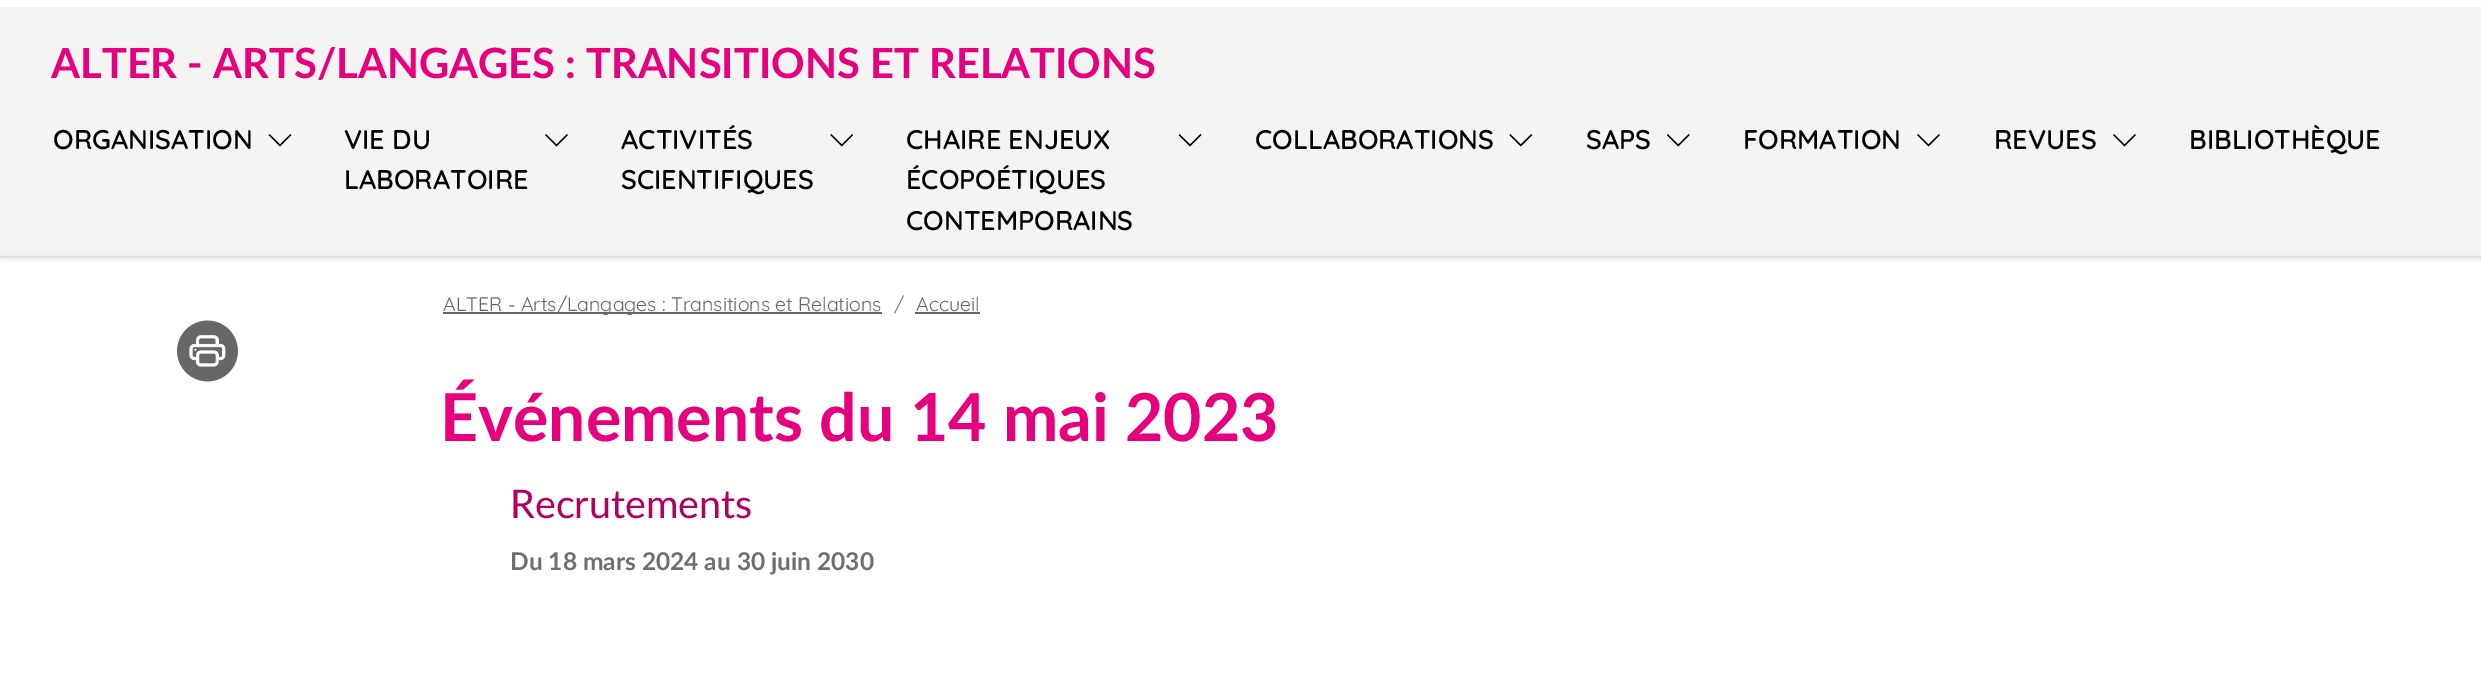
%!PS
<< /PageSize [2481 679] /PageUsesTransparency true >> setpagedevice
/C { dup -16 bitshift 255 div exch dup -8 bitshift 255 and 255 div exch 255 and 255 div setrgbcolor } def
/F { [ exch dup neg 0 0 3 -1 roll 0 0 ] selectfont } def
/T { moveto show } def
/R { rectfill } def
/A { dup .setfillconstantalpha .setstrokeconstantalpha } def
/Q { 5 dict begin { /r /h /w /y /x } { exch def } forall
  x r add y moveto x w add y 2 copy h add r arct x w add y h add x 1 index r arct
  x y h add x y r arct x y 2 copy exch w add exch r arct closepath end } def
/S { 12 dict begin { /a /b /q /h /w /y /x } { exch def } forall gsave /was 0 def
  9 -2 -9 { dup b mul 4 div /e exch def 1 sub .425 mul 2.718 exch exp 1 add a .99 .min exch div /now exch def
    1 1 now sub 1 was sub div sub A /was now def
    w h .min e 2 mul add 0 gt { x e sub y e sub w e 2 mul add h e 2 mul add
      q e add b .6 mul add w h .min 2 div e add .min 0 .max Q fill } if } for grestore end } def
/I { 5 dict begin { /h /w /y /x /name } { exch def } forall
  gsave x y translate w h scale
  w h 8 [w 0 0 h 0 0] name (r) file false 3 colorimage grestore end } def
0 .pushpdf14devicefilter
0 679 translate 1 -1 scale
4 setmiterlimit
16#FFFFFF C
0 0 2481 679 R
16#8A8A8A C
0 -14 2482 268 0 4.5 1 S
16#FFFFFF C
0 0 2481 7 R
16#F4F4F2 C
0 7 2481 247 R
/Lato-Bold 41.65 F
16#E6007E C
(ALTER - ARTS/LANGAGES : TRANSITIONS ET RELATIONS) 51 78 T
/Quicksand-SemiBold 27 F
16#000000 C
(ORGANISATION) 53 149 T
(1.rgb) 268 134 24 13 I
(VIE DU) 344 149 T
(LABORATOIRE) 344 189 T
(2.rgb) 545 134 23 13 I
(ACTIVITÉS) 621 149 T
(SCIENTIFIQUES) 621 189 T
(3.rgb) 830 134 23 13 I
(CHAIRE ENJEUX) 906 149 T
(ÉCOPOÉTIQUES) 906 189 T
(CONTEMPORAINS) 906 230 T
(1.rgb) 1178 134 24 13 I
(COLLABORATIONS) 1255 149 T
(4.rgb) 1509 134 24 13 I
(SAPS) 1586 149 T
(5.rgb) 1667 134 23 13 I
(FORMATION) 1743 149 T
(2.rgb) 1917 134 23 13 I
(REVUES) 1994 149 T
(2.rgb) 2113 134 23 13 I
(BIBLIOTHÈQUE) 2189 149 T
16#EFF1F2 C
0 254 2481 2 R
(6.rgb) 177 320 61 62 I
16#666666 C
443 312 439 2 R
/Quicksand-Light 19.6 F
(ALTER - Arts/Langages : Transitions et Relations) 443 311 T
16#6C757D C
(/) 894 311 T
16#666666 C
(Accueil) 916 311 T
915 312 65 2 R
/Lato-Bold 66.2 F
16#E6007E C
(Événements du 14 mai 2023) 440 441 T
/Lato-Regular 39.5 F
16#B10061 C
(Recrutements) 510 518 T
/Lato-Bold 24.5 F
16#706F6F C
(Du 18 mars 2024 au 30 juin 2030) 510 570 T
.poppdf14devicefilter showpage
